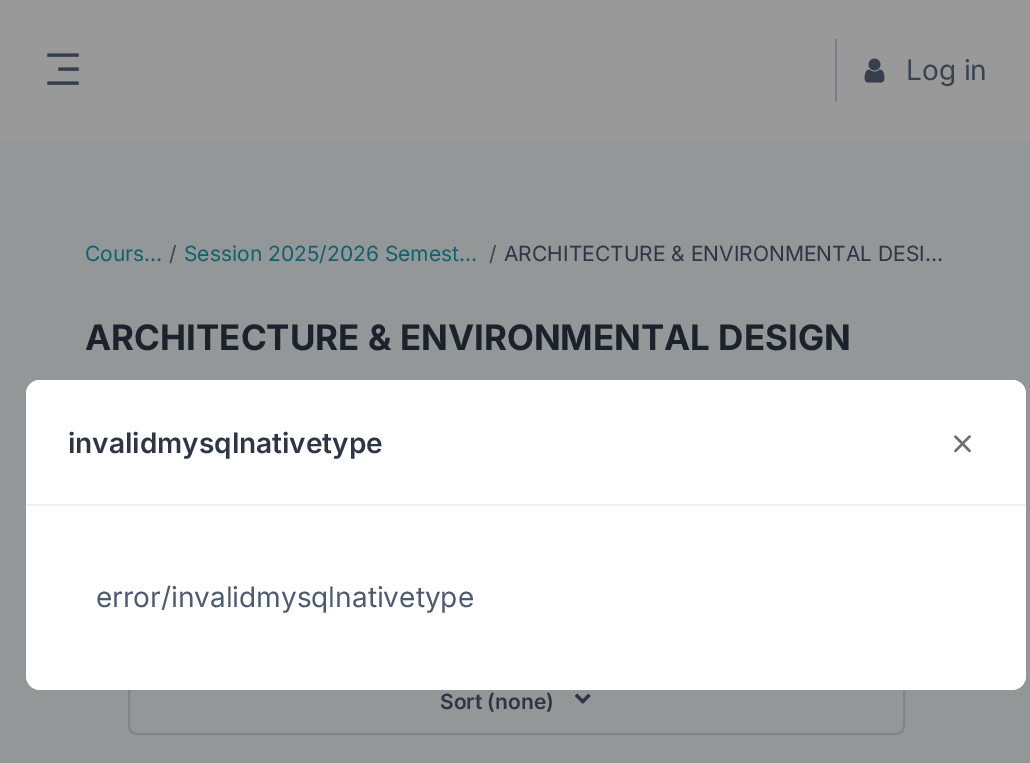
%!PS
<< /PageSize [1030 763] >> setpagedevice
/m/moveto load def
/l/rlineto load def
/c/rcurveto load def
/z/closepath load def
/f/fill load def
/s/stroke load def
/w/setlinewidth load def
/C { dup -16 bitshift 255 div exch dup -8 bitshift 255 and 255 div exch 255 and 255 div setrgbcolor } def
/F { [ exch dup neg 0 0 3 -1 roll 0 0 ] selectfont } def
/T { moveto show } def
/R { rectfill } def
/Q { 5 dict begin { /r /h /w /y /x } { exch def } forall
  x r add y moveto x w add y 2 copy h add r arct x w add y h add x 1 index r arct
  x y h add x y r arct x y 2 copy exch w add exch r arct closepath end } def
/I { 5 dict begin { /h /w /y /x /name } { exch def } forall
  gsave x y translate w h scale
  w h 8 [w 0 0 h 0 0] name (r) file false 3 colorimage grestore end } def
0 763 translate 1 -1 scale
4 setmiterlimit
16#949797 C
0 0 1030 763 R
16#999999 C
0 0 1030 140 R
(1.rgb) 47 53 32 32 I
16#7A7D82 C
835 39 2 63 R
(2.rgb) 864 58 21 25 I
/Inter-Regular 28 F
16#3A424F C
(Log in) 906 80 T
/Inter-Regular 21 F
16#0E616E C
(Cours…) 85 261 T
16#40454A C
(/) 169 261 T
16#0E616E C
(Session 2025/2026 Semest…) 184 261 T
16#40454A C
(/) 489 261 T
16#2E3645 C
(ARCHITECTURE & ENVIRONMENTAL DESI…) 504 261 T
/Inter-Bold 35 F
16#1C222B C
(ARCHITECTURE & ENVIRONMENTAL DESIGN) 85 350 T
16#80858C C
2 w
129 670 775 64 8 Q s
/Inter-SemiBold 21 F
16#2E3645 C
(Sort \(none\)) 440 709 T
(3.rgb) 575 693 16 11 I
16#FFFFFF C
26 380 1000 310 14 Q f
40 380 m 972 0 l 7.5 0 14 6.5 14 14 c 0 112 l -1000 0 l 0 -112 l 0 -7.5 6.5 -14 14 -14 c z f
16#EDF1F6 C
26 504 1000 2 R
/Inter-SemiBold 28 F
16#2E3645 C
(invalidmysqlnativetype) 68 453 T
(4.rgb) 954 435 17 18 I
/Inter-Regular 28 F
16#4C5A73 C
(error/invalidmysqlnativetype) 96 607 T
showpage
